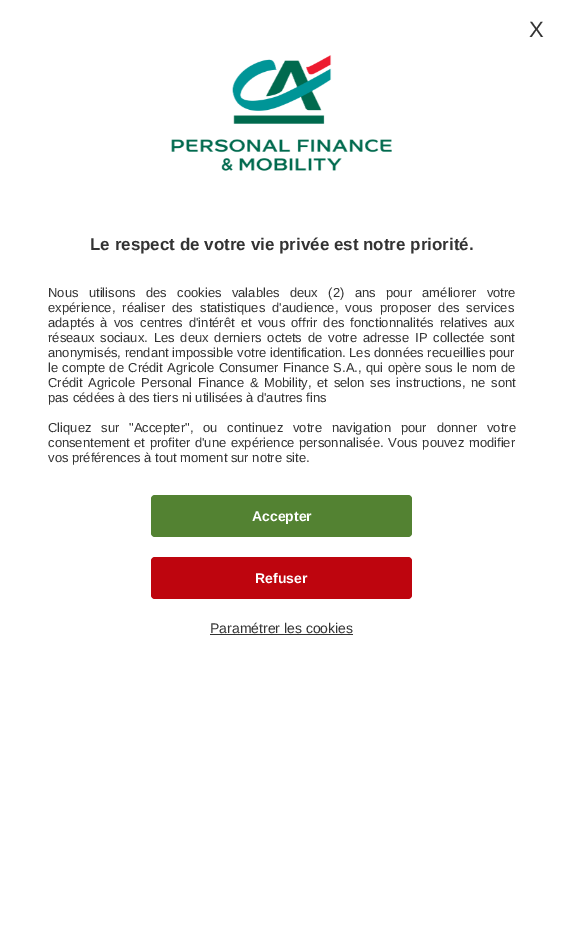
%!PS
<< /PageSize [563 933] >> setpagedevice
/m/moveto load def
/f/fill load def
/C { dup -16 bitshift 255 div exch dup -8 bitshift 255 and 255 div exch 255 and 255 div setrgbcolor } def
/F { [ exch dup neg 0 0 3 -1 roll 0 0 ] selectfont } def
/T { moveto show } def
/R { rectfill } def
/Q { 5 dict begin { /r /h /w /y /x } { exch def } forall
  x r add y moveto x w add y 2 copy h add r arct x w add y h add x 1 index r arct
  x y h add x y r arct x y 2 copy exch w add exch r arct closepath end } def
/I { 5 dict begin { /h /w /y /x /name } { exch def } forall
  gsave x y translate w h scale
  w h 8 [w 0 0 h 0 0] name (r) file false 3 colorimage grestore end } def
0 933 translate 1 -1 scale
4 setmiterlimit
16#FFFFFF C
0 0 563 933 R
/LiberationSans-Regular 22 F
16#333333 C
(X) 529 37 T
(1.rgb) 171 55 221 116 I
/LiberationSans-Bold 17 F
(Le respect de votre vie privée est notre priorité.) 90 250 T
/LiberationSans-Regular 13 F
48 297 m 6.75 0 32 (Nous utilisons des cookies valables deux \(2\) ans pour améliorer votre) widthshow
48 312 m 3.5 0 32 (expérience, réaliser des statistiques d'audience, vous proposer des services) widthshow
48 327 m 2.5 0 32 (adaptés à vos centres d'intérêt et vous offrir des fonctionnalités relatives aux) widthshow
48 342 m 2.25 0 32 (réseaux sociaux. Les deux derniers octets de votre adresse IP collectée sont) widthshow
(anonymisés, rendant impossible votre identification. Les données recueillies pour) 48 357 T
48 372 m .75 0 32 (le compte de Crédit Agricole Consumer Finance S.A., qui opère sous le nom de) widthshow
48 387 m 2 0 32 (Crédit Agricole Personal Finance & Mobility, et selon ses instructions, ne sont) widthshow
(pas cédées à des tiers ni utilisées à d'autres fins) 48 402 T
48 432 m 6.25 0 32 (Cliquez sur "Accepter", ou continuez votre navigation pour donner votre) widthshow
48 447 m 1 0 32 (consentement et profiter d'une expérience personnalisée. Vous pouvez modifier) widthshow
(vos préférences à tout moment sur notre site.) 48 462 T
16#538232 C
151 495 261 42 4 Q f
/LiberationSans-Bold 14 F
16#FFFFFF C
(Accepter) 252 521 T
16#BE050E C
151 557 261 42 4 Q f
16#FFFFFF C
(Refuser) 255 583 T
/LiberationSans-Regular 14 F
16#333333 C
(Paramétrer les cookies) 210 633 T
210 634 143 1 R
showpage
